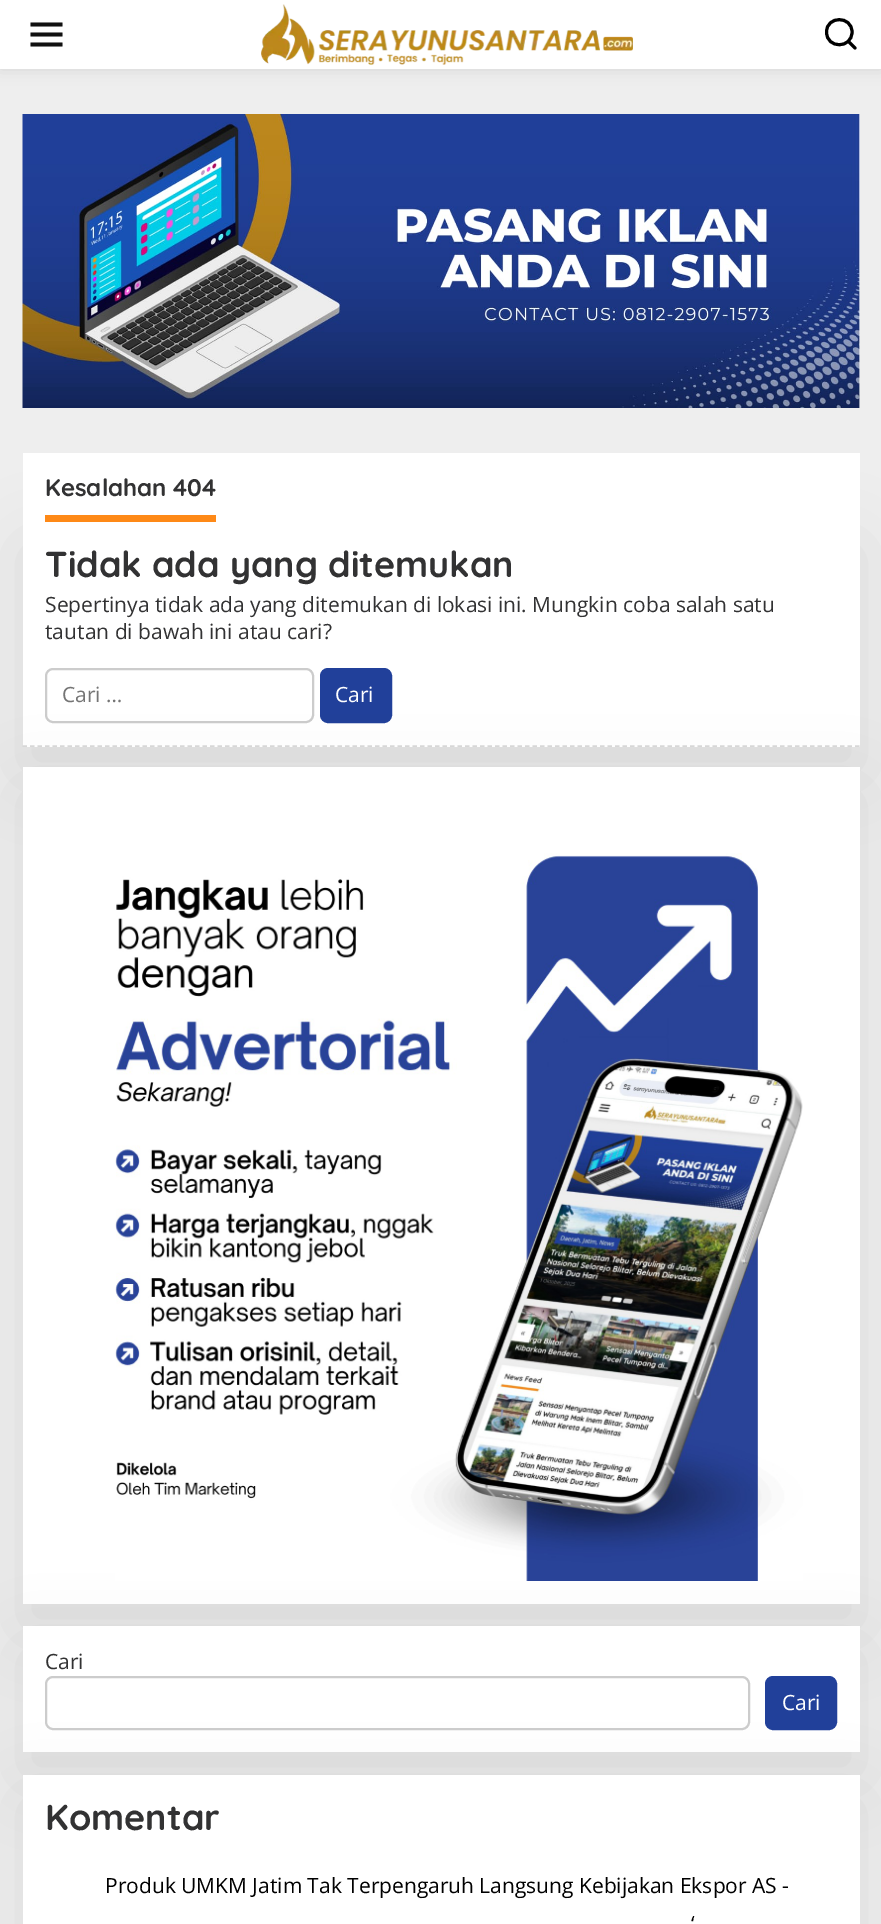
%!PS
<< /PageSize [881 1924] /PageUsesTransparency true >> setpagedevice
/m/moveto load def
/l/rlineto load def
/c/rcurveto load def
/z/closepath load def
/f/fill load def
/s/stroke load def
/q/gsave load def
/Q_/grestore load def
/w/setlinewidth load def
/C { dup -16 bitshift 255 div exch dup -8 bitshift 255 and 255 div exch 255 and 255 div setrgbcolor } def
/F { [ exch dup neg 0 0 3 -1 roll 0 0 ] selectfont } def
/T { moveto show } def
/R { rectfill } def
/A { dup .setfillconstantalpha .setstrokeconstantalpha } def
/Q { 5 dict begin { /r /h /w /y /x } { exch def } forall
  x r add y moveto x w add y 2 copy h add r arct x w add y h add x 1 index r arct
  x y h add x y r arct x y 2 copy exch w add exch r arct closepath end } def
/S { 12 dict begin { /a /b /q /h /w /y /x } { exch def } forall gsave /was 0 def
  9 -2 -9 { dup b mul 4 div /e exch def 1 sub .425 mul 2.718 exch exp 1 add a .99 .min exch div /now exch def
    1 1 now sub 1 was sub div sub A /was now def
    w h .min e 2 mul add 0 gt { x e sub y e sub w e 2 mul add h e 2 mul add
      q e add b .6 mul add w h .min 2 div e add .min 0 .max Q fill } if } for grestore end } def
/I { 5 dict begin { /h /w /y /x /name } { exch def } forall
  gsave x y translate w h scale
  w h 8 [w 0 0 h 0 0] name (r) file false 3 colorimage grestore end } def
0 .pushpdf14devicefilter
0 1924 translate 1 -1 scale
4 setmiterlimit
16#EEEEEE C
0 0 881 1924 R
16#000000 C
0 0 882 69 0 7.5 .1 S
16#FFFFFF C
0 0 881 69 R
16#111111 C
30.5 22.5 m 32 0 l 0 4 l -32 0 l z 30.5 32.5 m 32 0 l 0 4 l -32 0 l z 30.5 42.5 m 32 0 l 0 4 l -32 0 l z f
(1.rgb) 261 4 372 61 I
16#000000 C
3 w
1 setlinecap
855 48 m -6.5 -6.5 l 852 32 m 0 17 -25.5 17 -25.5 0 c 0 -16.5 25.5 -16.5 25.5 0 c z s
(2.rgb) 22 114 838 294 I
23 546 837 225 0 34 .07 S
16#FFFFFF C
23 453 837 294 R
16#FE8917 C
45 515 171 7 R
/Quicksand-Bold 24 F
16#323233 C
(Kesalahan 404) 45 496 T
16#D9D9D9 C
1.5 w
0 setlinecap
[4.5 3] 0 setdash
22.5 746 m 837 0 l s
/Quicksand-Bold 36 F
16#323233 C
(Tidak ada yang ditemukan) 45 577 T
/OpenSans-Regular 21 F
(Sepertinya tidak ada yang ditemukan di lokasi ini. Mungkin coba salah satu) 45 612 T
(tautan di bawah ini atau cari?) 45 639 T
16#CCCCCC C
2 w
[] 0 setdash
46 669 267 53 7 Q s
16#757575 C
(Cari …) 62 702 T
16#21409A C
321 669 70 53 7 Q q f Q_
s
16#FFFFFF C
(Cari) 335 702 T
16#000000 C
23 791 837 837 0 34 .07 S
16#FFFFFF C
23 767 837 837 R
16#000000 C
23 1650 837 126 0 34 .07 S
(3.rgb) 115 853 688 728 I
16#FFFFFF C
23 1626 837 126 R
16#323233 C
(Cari) 45 1669 T
16#000000 C
23 1799 837 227 0 34 .07 S
16#CCCCCC C
46 1677 703 52 7 Q s
16#21409A C
766 1677 70 52 7 Q q f Q_
s
16#FFFFFF C
(Cari) 782 1710 T
23 1775 837 149 R
/Quicksand-Bold 36 F
16#323233 C
(Komentar) 45 1830 T
/OpenSans-Regular 21 F
16#000000 C
(Produk UMKM Jatim Tak Terpengaruh Langsung Kebijakan Ekspor AS -) 105 1893 T
(‘) 691 1931 T
.poppdf14devicefilter showpage
